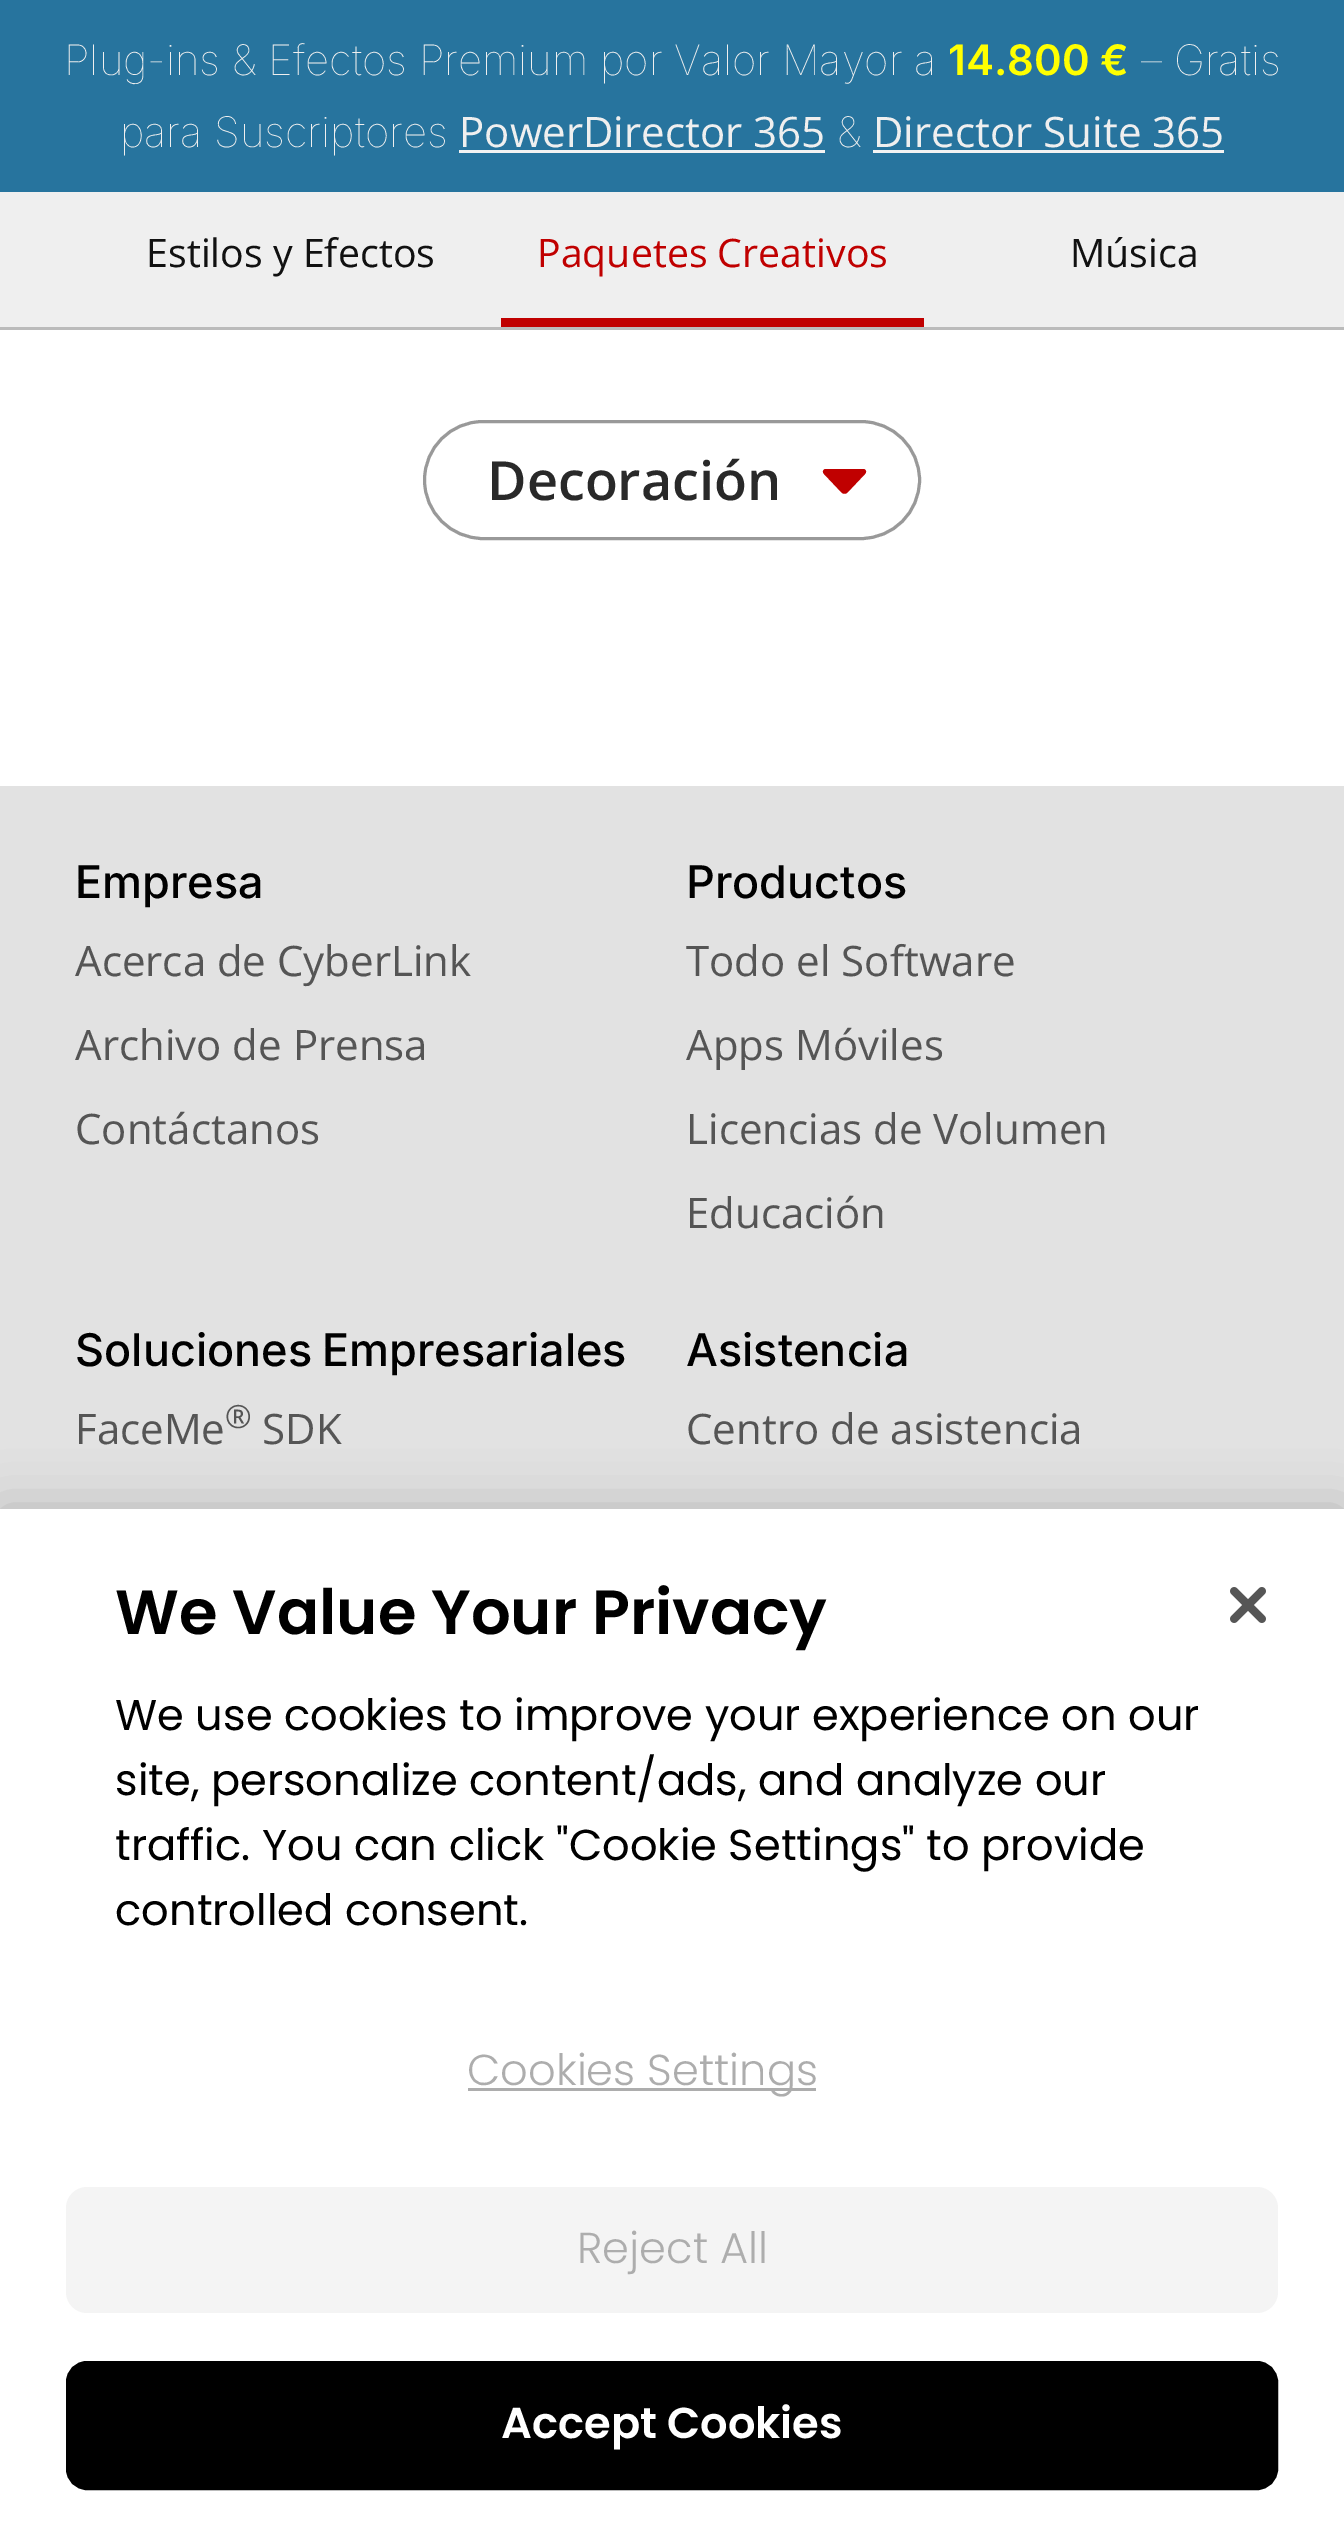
%!PS
<< /PageSize [1344 2537] /PageUsesTransparency true >> setpagedevice
/m/moveto load def
/l/rlineto load def
/c/rcurveto load def
/z/closepath load def
/f/fill load def
/s/stroke load def
/q/gsave load def
/Q_/grestore load def
/w/setlinewidth load def
/C { dup -16 bitshift 255 div exch dup -8 bitshift 255 and 255 div exch 255 and 255 div setrgbcolor } def
/F { [ exch dup neg 0 0 3 -1 roll 0 0 ] selectfont } def
/T { moveto show } def
/R { rectfill } def
/A { dup .setfillconstantalpha .setstrokeconstantalpha } def
/Q { 5 dict begin { /r /h /w /y /x } { exch def } forall
  x r add y moveto x w add y 2 copy h add r arct x w add y h add x 1 index r arct
  x y h add x y r arct x y 2 copy exch w add exch r arct closepath end } def
/S { 12 dict begin { /a /b /q /h /w /y /x } { exch def } forall gsave /was 0 def
  9 -2 -9 { dup b mul 4 div /e exch def 1 sub .425 mul 2.718 exch exp 1 add a .99 .min exch div /now exch def
    1 1 now sub 1 was sub div sub A /was now def
    w h .min e 2 mul add 0 gt { x e sub y e sub w e 2 mul add h e 2 mul add
      q e add b .6 mul add w h .min 2 div e add .min 0 .max Q fill } if } for grestore end } def
/I { 5 dict begin { /h /w /y /x /name } { exch def } forall
  gsave x y translate w h scale
  w h 8 [w 0 0 h 0 0] name (r) file false 3 colorimage grestore end } def
0 .pushpdf14devicefilter
0 2537 translate 1 -1 scale
4 setmiterlimit
16#FFFFFF C
0 0 1344 2537 R
16#27749E C
0 0 1344 192 R
/Inter-Thin 42 F
16#EFEFEF C
(Plug-ins & Efectos Premium por Valor Mayor a) 64 75 T
/Inter-SemiBold 42 F
16#FFFF00 C
(14.800 €) 948 75 T
/Inter-Thin 42 F
16#EFEFEF C
(– Gratis) 1141 75 T
(para Suscriptores) 120 147 T
/OpenSans-Regular 42 F
(PowerDirector 365) 459 147 T
16#F3F3F3 C
459 150 366 3 R
/Inter-Thin 42 F
16#EFEFEF C
(&) 837 147 T
/OpenSans-Regular 42 F
(Director Suite 365) 873 147 T
16#F3F3F3 C
873 150 351 3 R
16#EFEFEF C
0 192 1344 135 R
16#BBBBBB C
0 327 1344 3 R
/OpenSans-Regular 39.25 F
16#111111 C
(Estilos y Efectos) 146 267 T
16#C00000 C
501 318 423 9 R
(Paquetes Creativos) 537 267 T
16#111111 C
(Música) 1070 267 T
16#C00000 C
826 469 m 37 0 l 3 0 4 3 2 5 c -18 19 l -2 1 -3 1 -5 0 c -18 -19 l -2 -2 -1 -5 2 -5 c z f
16#999999 C
3 w
424.5 421.5 495 117 58.5 Q s
/OpenSans-SemiBold 54 F
16#292929 C
(Decoración) 487 500 T
16#E2E2E2 C
0 786 1344 723 R
/Inter-Medium 45 F
16#000000 C
(Empresa) 75 898 T
/OpenSans-Regular 42 F
16#555555 C
(Acerca de CyberLink) 75 976 T
(Archivo de Prensa) 75 1060 T
(Contáctanos) 75 1144 T
/Inter-Medium 45 F
16#000000 C
(Productos) 686 898 T
/OpenSans-Regular 42 F
16#555555 C
(Todo el Software) 686 976 T
(Apps Móviles) 686 1060 T
(Licencias de Volumen) 686 1144 T
(Educación) 686 1228 T
/Inter-Medium 45 F
16#000000 C
75 1366 m -2 0 32 (Soluciones Empresariales) widthshow
/OpenSans-Regular 42 F
16#555555 C
(FaceMe) 75 1444 T
/OpenSans-Regular 32 F
(®) 225 1428 T
/OpenSans-Regular 42 F
(SDK) 262 1444 T
/Inter-Medium 45 F
16#000000 C
(Asistencia) 686 1366 T
/OpenSans-Regular 42 F
16#555555 C
(Centro de asistencia) 686 1444 T
16#000000 C
0 1509 1344 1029 0 27 .2 S
16#FFFFFF C
0 1509 1344 1028 R
/Poppins-SemiBold 62.4 F
16#000000 C
(We Value Your Privacy) 115 1634 T
/Poppins-Regular 43.2 F
(We use cookies to improve your experience on our) 115 1730 T
(site, personalize content/ads, and analyze our) 115 1795 T
(traffic. You can click "Cookie Settings" to provide) 115 1860 T
(controlled consent.) 115 1925 T
16#ADADAD C
468 2088 348 3 R
/Poppins-Light 43.2 F
(Cookies Settings) 467 2085 T
16#F4F4F4 C
66 2187 1212 126 21 Q f
16#ADADAD C
(Reject All) 577 2263 T
16#000000 C
67.5 2362.5 1209 126 19.5 Q q f Q_
s
/Poppins-SemiBold 43.2 F
16#FFFFFF C
(Accept Cookies) 501 2438 T
(1.rgb) 1230 1587 36 36 I
.poppdf14devicefilter showpage
